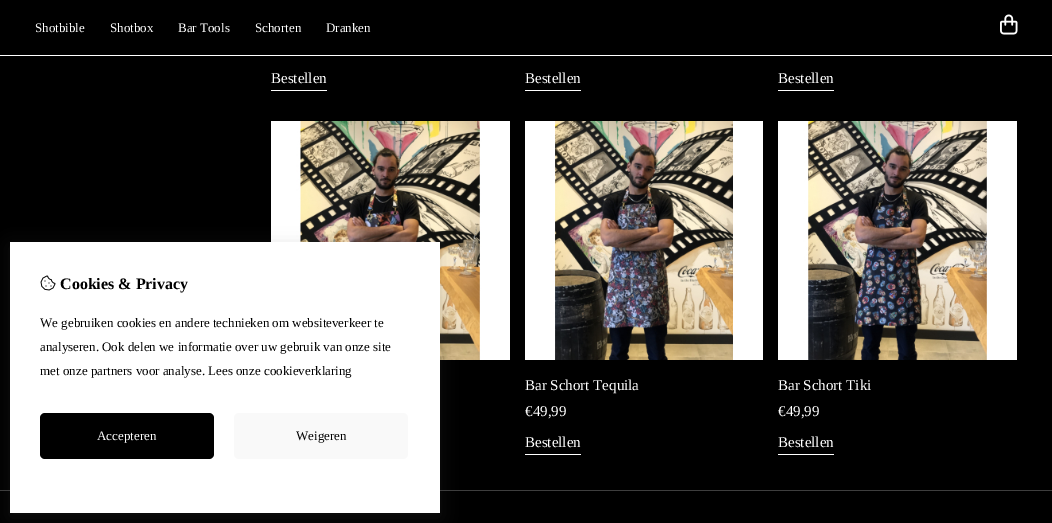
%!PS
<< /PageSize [1052 523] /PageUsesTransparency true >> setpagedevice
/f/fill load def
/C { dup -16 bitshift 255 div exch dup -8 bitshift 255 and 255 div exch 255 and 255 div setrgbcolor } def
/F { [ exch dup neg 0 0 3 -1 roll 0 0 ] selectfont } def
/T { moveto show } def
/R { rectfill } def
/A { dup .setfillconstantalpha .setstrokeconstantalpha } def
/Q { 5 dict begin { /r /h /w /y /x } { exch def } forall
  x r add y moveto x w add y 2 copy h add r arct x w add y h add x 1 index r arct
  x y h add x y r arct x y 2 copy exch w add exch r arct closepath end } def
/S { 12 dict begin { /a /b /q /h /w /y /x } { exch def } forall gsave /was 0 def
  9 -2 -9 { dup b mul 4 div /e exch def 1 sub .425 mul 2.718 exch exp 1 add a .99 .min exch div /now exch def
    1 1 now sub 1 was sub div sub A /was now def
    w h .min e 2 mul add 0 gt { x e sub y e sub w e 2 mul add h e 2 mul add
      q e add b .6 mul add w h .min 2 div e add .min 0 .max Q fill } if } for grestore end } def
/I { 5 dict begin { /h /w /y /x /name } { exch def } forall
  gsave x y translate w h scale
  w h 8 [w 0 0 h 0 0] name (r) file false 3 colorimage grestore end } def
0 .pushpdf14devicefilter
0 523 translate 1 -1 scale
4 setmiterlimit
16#000000 C
0 0 1052 523 R
16#FFFFFF C
0 55 1052 1 R
/LiberationSerif-Regular 13 F
(Shotbible) 35 32 T
(Shotbox) 110 32 T
(Bar Tools) 178 32 T
(Schorten) 255 32 T
(Dranken) 326 32 T
(1.rgb) 1000 14 18 21 I
271 90 56 1 R
/LiberationSerif-Regular 15 F
(Bestellen) 271 83 T
525 90 56 1 R
(Bestellen) 525 83 T
778 90 56 1 R
(Bestellen) 778 83 T
(2.rgb) 271 121 239 239 I
(3.rgb) 525 121 238 239 I
(Bar Schort Tequila) 525 390 T
(€49,99) 525 416 T
525 454 56 1 R
(Bestellen) 525 447 T
(4.rgb) 778 121 239 239 I
(Bar Schort Tiki) 778 390 T
(€49,99) 778 416 T
778 454 56 1 R
(Bestellen) 778 447 T
16#3E3E3E C
0 490 1052 1 R
16#4C4C4C C
10 246 430 271 0 8.5 .2 S
16#FFFFFF C
10 242 430 271 R
(5.rgb) 40 275 16 16 I
/LiberationSerif-Bold 16 F
16#000000 C
(Cookies & Privacy) 60 289 T
/LiberationSerif-Regular 13 F
(We gebruiken cookies en andere technieken om websiteverkeer te) 40 327 T
(analyseren. Ook delen we informatie over uw gebruik van onze site) 40 351 T
(met onze partners voor analyse. Lees onze cookieverklaring) 40 375 T
40 413 174 46 5 Q f
16#FFFFFF C
(Accepteren) 97 440 T
16#F9F9F9 C
234 413 174 46 5 Q f
16#000000 C
(Weigeren) 296 440 T
.poppdf14devicefilter showpage
